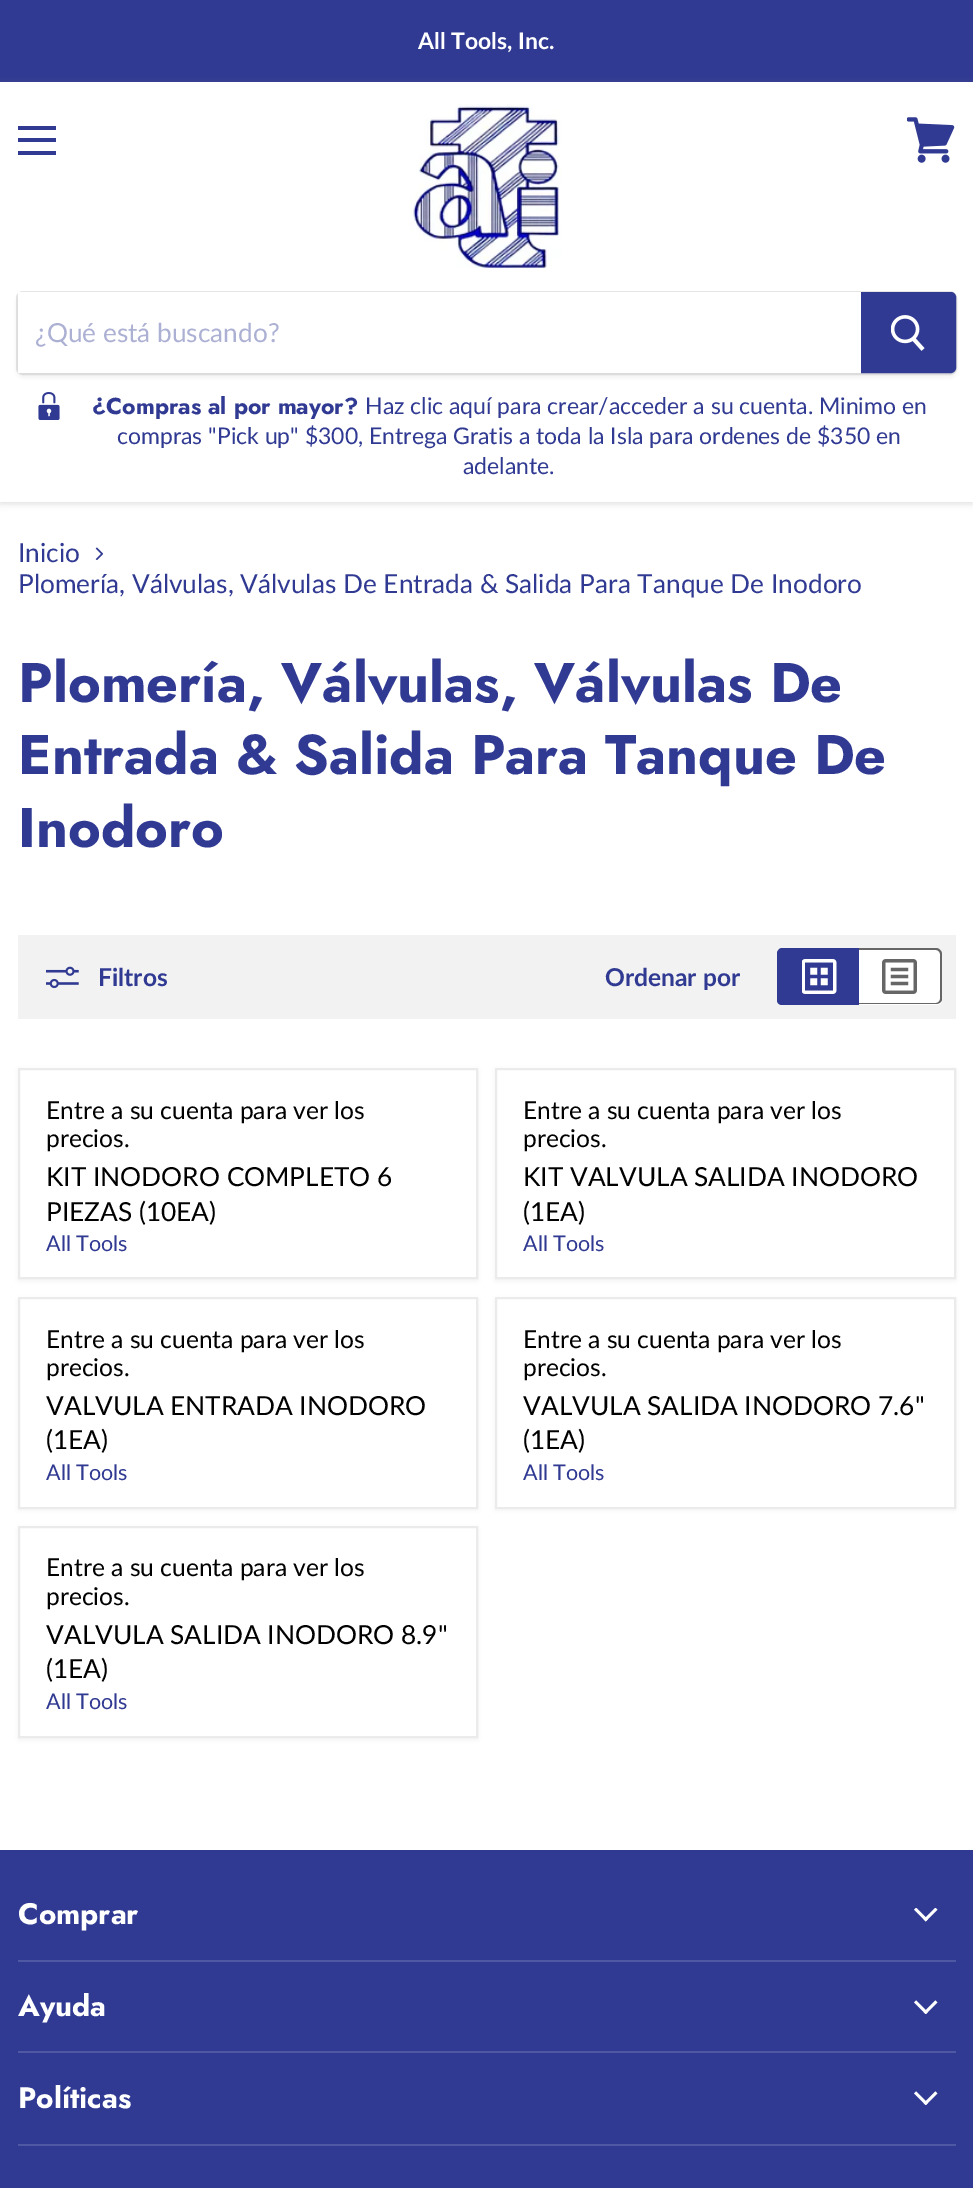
%!PS
<< /PageSize [973 2188] /PageUsesTransparency true >> setpagedevice
/m/moveto load def
/l/rlineto load def
/c/rcurveto load def
/z/closepath load def
/f/fill load def
/s/stroke load def
/q/gsave load def
/Q_/grestore load def
/w/setlinewidth load def
/C { dup -16 bitshift 255 div exch dup -8 bitshift 255 and 255 div exch 255 and 255 div setrgbcolor } def
/F { [ exch dup neg 0 0 3 -1 roll 0 0 ] selectfont } def
/T { moveto show } def
/R { rectfill } def
/A { dup .setfillconstantalpha .setstrokeconstantalpha } def
/Q { 5 dict begin { /r /h /w /y /x } { exch def } forall
  x r add y moveto x w add y 2 copy h add r arct x w add y h add x 1 index r arct
  x y h add x y r arct x y 2 copy exch w add exch r arct closepath end } def
/S { 12 dict begin { /a /b /q /h /w /y /x } { exch def } forall gsave /was 0 def
  9 -2 -9 { dup b mul 4 div /e exch def 1 sub .425 mul 2.718 exch exp 1 add a .99 .min exch div /now exch def
    1 1 now sub 1 was sub div sub A /was now def
    w h .min e 2 mul add 0 gt { x e sub y e sub w e 2 mul add h e 2 mul add
      q e add b .6 mul add w h .min 2 div e add .min 0 .max Q fill } if } for grestore end } def
/I { 5 dict begin { /h /w /y /x /name } { exch def } forall
  gsave x y translate w h scale
  w h 8 [w 0 0 h 0 0] name (r) file false 3 colorimage grestore end } def
0 .pushpdf14devicefilter
0 2188 translate 1 -1 scale
4 setmiterlimit
16#FFFFFF C
0 0 973 2188 R
16#303A92 C
0 0 973 82 R
/Lato-Bold 22.95 F
16#FFFFFF C
(All Tools, Inc.) 418 49 T
16#808080 C
0 84 973 420 0 3.5 .25 S
16#FFFFFF C
0 82 973 420 R
16#303A92 C
18 126 38 4 R
18 138 38 4 R
18 151 38 4 R
(1.rgb) 907 117 48 46 I
(2.rgb) 410 104 151 165 I
16#808080 C
16 294 941 84 7 2.5 .11 S
0.2 A
2 w
17 292 939 82 6 Q s
1 A
16#FFFFFF C
18 292 843 81 R
/Lato-Regular 26.25 F
16#ACB0D3 C
(¿Qué está buscando?) 35 342 T
16#303A92 C
862 293 m 89 0 l 2 0 4 2 4 4 c 0 71 l 0 2 -2 4 -4 4 c -89 0 l z q f Q_
s
(3.rgb) 891 315 34 36 I
(4.rgb) 38 392 22 28 I
/Jost-Bold 22.95 F
(¿Compras al por mayor?) 92 414 T
/Lato-Regular 22.95 F
(Haz clic aquí para crear/acceder a su cuenta. Minimo en) 365 414 T
(compras "Pick up" $300, Entrega Gratis a toda la Isla para ordenes de $350 en) 117 444 T
(adelante.) 463 474 T
/Lato-Regular 26.25 F
(Inicio) 18 562 T
(5.rgb) 95 547 8 13 I
(Plomería, Válvulas, Válvulas De Entrada & Salida Para Tanque De Inodoro) 18 593 T
/Jost-Bold 55.75 F
(Plomería, Válvulas, Válvulas De) 18 702 T
(Entrada & Salida Para Tanque De) 18 774 T
(Inodoro) 18 847 T
16#F2F2F2 C
18 935 938 84 R
(6.rgb) 46 966 33 23 I
/Lato-Bold 24.6 F
16#303A92 C
(Filtros) 98 986 T
(Ordenar por) 605 986 T
782 949 m 77 0 l 0 56 l -77 0 l -3 0 -5 -2 -5 -5 c 0 -46 l 0 -3 2 -5 5 -5 c z f
782 948 m 77 0 l 0 56 l -77 0 l -3 0 -5 -2 -5 -5 c 0 -45 l 0 -3 2 -6 5 -6 c z 782 950 m 77 0 l 0 53 l -77 0 l -2 0 -3 -2 -3 -4 c 0 -45 l 0 -2 1 -4 3 -4 c z eofill
(7.rgb) 802 959 35 35 I
16#FFFFFF C
859 949 m 78 0 l 3 0 5 2 5 5 c 0 46 l 0 3 -2 5 -5 5 c -78 0 l z f
16#666666 C
859 948 m 77 0 l 3 0 6 3 6 6 c 0 45 l 0 3 -3 5 -6 5 c -77 0 l z 859 950 m 77 0 l 2 0 4 2 4 4 c 0 45 l 0 2 -2 4 -4 4 c -77 0 l z eofill
(8.rgb) 882 959 35 35 I
16#808080 C
18 1069 460 212 0 3.5 .11 S
16#FFFFFF C
19 1069 m 458 0 l 0 209 l -458 0 l z q f Q_
16#EBEBEB C
s
/Lato-Regular 24.6 F
16#000000 C
(Entre a su cuenta para ver los) 46 1119 T
(precios.) 46 1147 T
/Lato-Regular 26.25 F
(KIT INODORO COMPLETO 6) 46 1186 T
(PIEZAS \(10EA\)) 46 1221 T
/Lato-Regular 21.5 F
16#303A92 C
(All Tools) 46 1251 T
16#808080 C
495 1069 461 212 0 3.5 .11 S
16#FFFFFF C
496 1069 m 459 0 l 0 209 l -459 0 l z q f Q_
16#EBEBEB C
s
/Lato-Regular 24.6 F
16#000000 C
(Entre a su cuenta para ver los) 523 1119 T
(precios.) 523 1147 T
/Lato-Regular 26.25 F
(KIT VALVULA SALIDA INODORO) 523 1186 T
(\(1EA\)) 523 1221 T
/Lato-Regular 21.5 F
16#303A92 C
(All Tools) 523 1251 T
16#808080 C
18 1299 460 211 0 3.5 .11 S
16#FFFFFF C
19 1298 m 458 0 l 0 210 l -458 0 l z q f Q_
16#EBEBEB C
s
/Lato-Regular 24.6 F
16#000000 C
(Entre a su cuenta para ver los) 46 1348 T
(precios.) 46 1376 T
/Lato-Regular 26.25 F
(VALVULA ENTRADA INODORO) 46 1415 T
(\(1EA\)) 46 1449 T
/Lato-Regular 21.5 F
16#303A92 C
(All Tools) 46 1480 T
16#808080 C
495 1299 461 211 0 3.5 .11 S
16#FFFFFF C
496 1298 m 459 0 l 0 210 l -459 0 l z q f Q_
16#EBEBEB C
s
/Lato-Regular 24.6 F
16#000000 C
(Entre a su cuenta para ver los) 523 1348 T
(precios.) 523 1376 T
/Lato-Regular 26.25 F
(VALVULA SALIDA INODORO 7.6") 523 1415 T
(\(1EA\)) 523 1449 T
/Lato-Regular 21.5 F
16#303A92 C
(All Tools) 523 1480 T
16#808080 C
18 1528 460 212 0 3.5 .11 S
16#FFFFFF C
19 1527 m 458 0 l 0 210 l -458 0 l z q f Q_
16#EBEBEB C
s
/Lato-Regular 24.6 F
16#000000 C
(Entre a su cuenta para ver los) 46 1576 T
(precios.) 46 1605 T
/Lato-Regular 26.25 F
(VALVULA SALIDA INODORO 8.9") 46 1644 T
(\(1EA\)) 46 1678 T
/Lato-Regular 21.5 F
16#303A92 C
(All Tools) 46 1709 T
0 1850 973 338 R
16#4F58A2 C
18 1960 938 2 R
/Jost-Bold 29.5 F
16#FFFFFF C
(Comprar) 18 1924 T
(9.rgb) 914 1908 24 14 I
16#4F58A2 C
18 2051 938 2 R
16#FFFFFF C
(Ayuda) 18 2016 T
(10.rgb) 914 2000 24 14 I
16#4F58A2 C
18 2144 938 2 R
16#FFFFFF C
(Políticas) 18 2108 T
(10.rgb) 914 2091 24 14 I
.poppdf14devicefilter showpage
